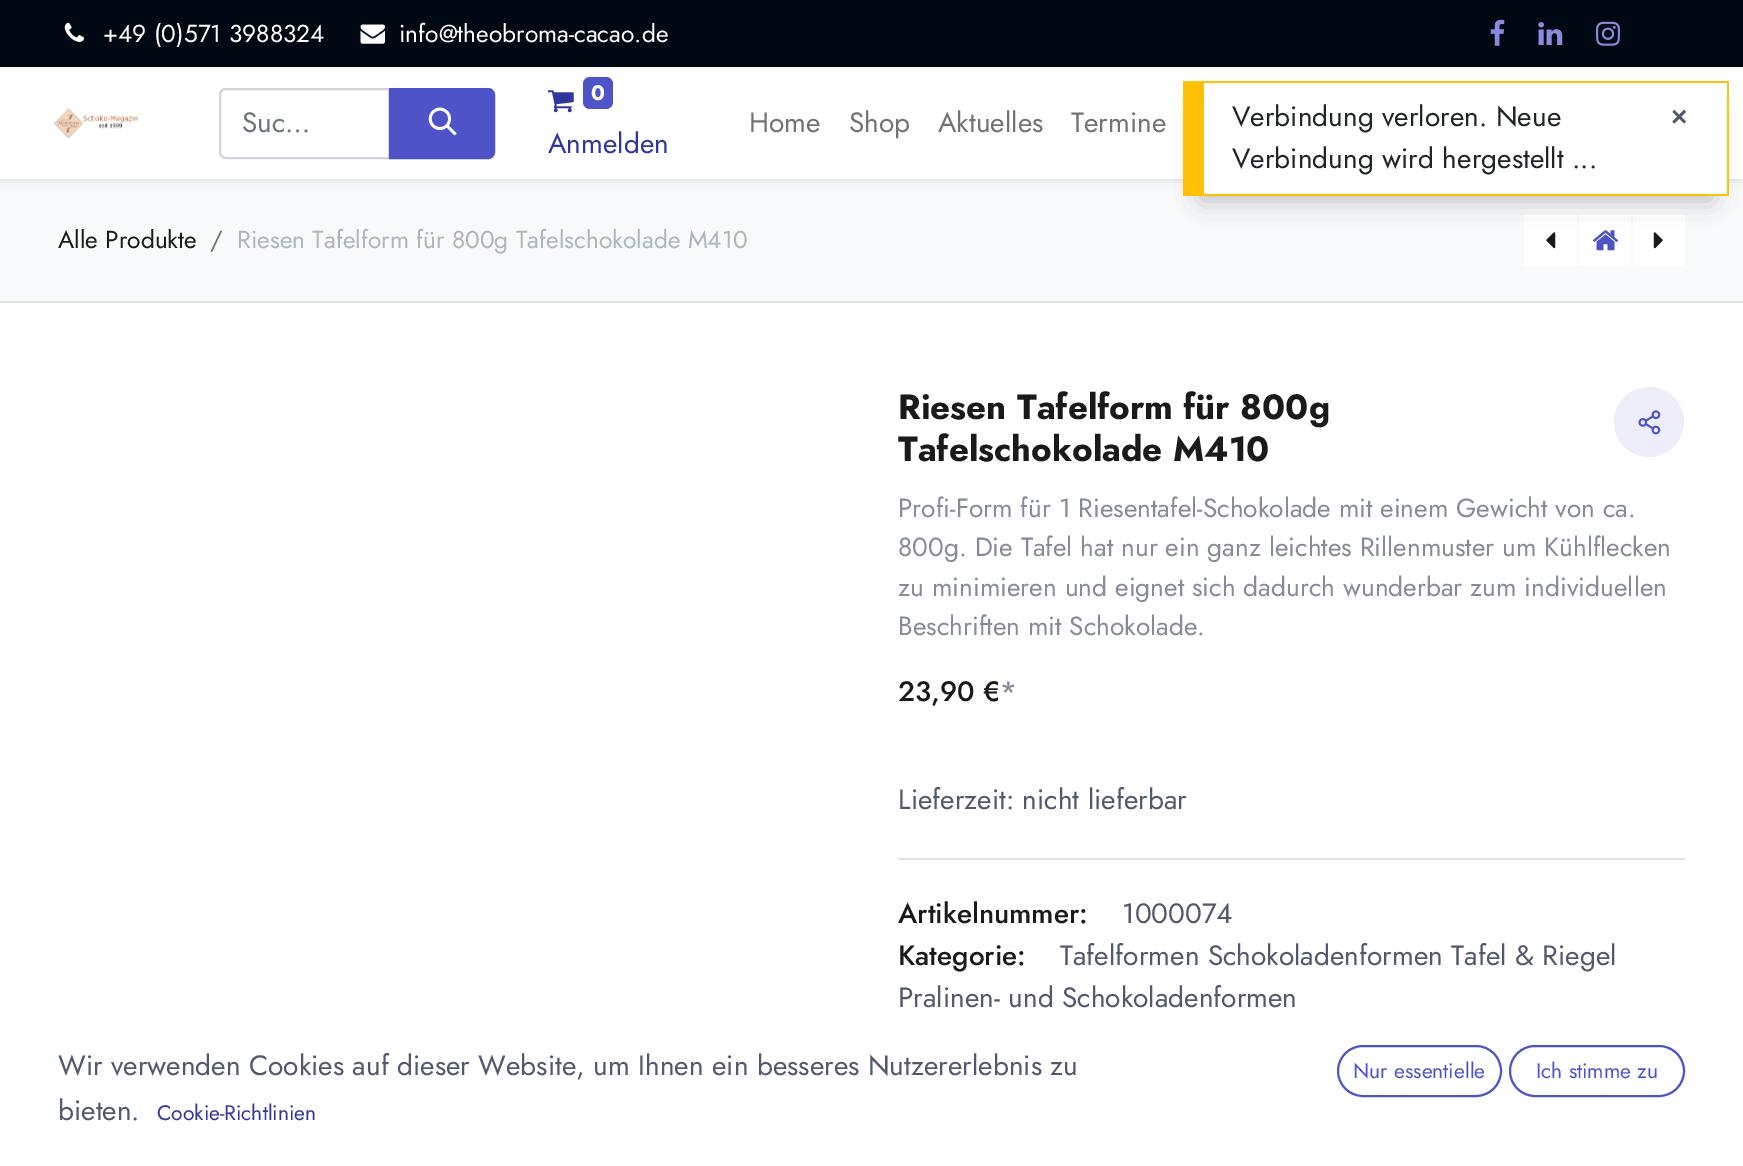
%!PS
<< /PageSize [1743 1166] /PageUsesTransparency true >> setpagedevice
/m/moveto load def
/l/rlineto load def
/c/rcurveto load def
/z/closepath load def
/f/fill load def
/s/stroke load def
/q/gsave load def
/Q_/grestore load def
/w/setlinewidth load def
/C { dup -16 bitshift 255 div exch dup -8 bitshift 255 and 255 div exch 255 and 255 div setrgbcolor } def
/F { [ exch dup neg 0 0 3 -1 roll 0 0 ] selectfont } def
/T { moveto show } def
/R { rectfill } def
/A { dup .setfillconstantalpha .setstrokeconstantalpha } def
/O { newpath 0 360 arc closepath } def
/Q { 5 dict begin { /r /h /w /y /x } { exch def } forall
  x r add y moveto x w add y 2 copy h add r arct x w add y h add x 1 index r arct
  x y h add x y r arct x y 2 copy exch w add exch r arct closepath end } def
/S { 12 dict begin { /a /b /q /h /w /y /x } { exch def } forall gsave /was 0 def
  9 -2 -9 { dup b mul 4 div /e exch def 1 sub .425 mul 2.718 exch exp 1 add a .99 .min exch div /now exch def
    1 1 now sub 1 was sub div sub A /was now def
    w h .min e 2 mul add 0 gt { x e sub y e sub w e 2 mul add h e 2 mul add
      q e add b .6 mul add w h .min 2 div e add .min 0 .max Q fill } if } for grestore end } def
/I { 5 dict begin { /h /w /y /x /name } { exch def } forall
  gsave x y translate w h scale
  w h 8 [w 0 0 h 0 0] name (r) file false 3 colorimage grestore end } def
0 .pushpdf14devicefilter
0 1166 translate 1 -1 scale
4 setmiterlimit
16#FFFFFF C
0 0 1743 1166 R
16#000814 C
0 0 1743 67 R
(1.rgb) 64 22 20 20 I
/Jost-Regular 24.5 F
16#FFFFFF C
(+49 \(0\)571 3988324) 103 42 T
(2.rgb) 360 24 25 20 I
(info@theobroma-cacao.de) 399 42 T
(3.rgb) 1490 19 15 27 I
(4.rgb) 1538 22 25 23 I
(5.rgb) 1596 21 24 25 I
16#F8F9FA C
0 179 1743 122 R
16#000000 C
0 70 1743 112 0 3.5 .07 S
16#FFFFFF C
0 67 1743 112 R
(6.rgb) 54 108 85 31 I
16#CED4DA C
2 w
226 89 m 163 0 l 0 69 l -163 0 l -3.5 0 -6 -2.5 -6 -6 c 0 -57 l 0 -3.5 2.5 -6 6 -6 c z s
/Jost-Regular 28 F
16#6C757D C
(Suc…) 242 132 T
16#4E54C8 C
390 89 m 98 0 l 3.5 0 6 2.5 6 6 c 0 57 l 0 3.5 -2.5 6 -6 6 c -98 0 l z q f Q_
s
(7.rgb) 428 107 29 29 I
(8.rgb) 547 90 27 23 I
583 77 30 32 7 Q f
/Jost-Bold 21 F
16#FFFFFF C
(0) 591 100 T
/Jost-Regular 28 F
16#31369E C
(Anmelden) 548 153 T
16#737373 C
(Home) 749 132 T
(Shop) 849 132 T
(Aktuelles) 938 132 T
(Termine) 1071 132 T
16#DEE2E6 C
0 301 1743 2 R
/Jost-Regular 24.5 F
16#1A1A1A C
(Alle Produkte) 58 248 T
16#6C757D C
(/) 210 248 T
16#ADB5BD C
(Riesen Tafelform für 800g Tafelschokolade M410) 237 248 T
16#FFFFFF C
1524 214 53 52 R
(9.rgb) 1546 232 10 17 I
1579 214 52 52 R
(10.rgb) 1592 230 27 21 I
1633 214 52 52 R
(11.rgb) 1653 232 10 17 I
/Jost-Bold 35 F
16#1A1A1A C
(Riesen Tafelform für 800g) 898 419 T
(Tafelschokolade M410) 898 461 T
16#EDEEFA C
1649 422 35 O f
(12.rgb) 1638 410 23 25 I
/Jost-Regular 26.25 F
16#858B98 C
(Profi-Form für 1 Riesentafel-Schokolade mit einem Gewicht von ca.) 898 517 T
(800g. Die Tafel hat nur ein ganz leichtes Rillenmuster um Kühlflecken) 898 556 T
(zu minimieren und eignet sich dadurch wunderbar zum individuellen) 898 596 T
(Beschriften mit Schokolade.) 898 635 T
/Jost-Medium 28 F
16#1A1A1A C
(23,90 €) 898 701 T
16#858B98 C
(*) 1000 701 T
/Jost-Regular 28 F
16#51596C C
(Lieferzeit: nicht lieferbar) 898 809 T
16#DEE2E6 C
898 858 787 2 R
/Jost-Medium 28 F
16#1A1A1A C
(Artikelnummer:) 898 923 T
/Jost-Regular 28 F
16#51596C C
(1000074) 1122 923 T
/Jost-Medium 28 F
16#1A1A1A C
(Kategorie:) 898 965 T
/Jost-Regular 28 F
16#51596C C
(Tafelformen Schokoladenformen Tafel & Riegel) 1060 965 T
(Pralinen- und Schokoladenformen) 898 1007 T
(Wir verwenden Cookies auf dieser Website, um Ihnen ein besseres Nutzererlebnis zu) 58 1075 T
(bieten.) 58 1120 T
/Jost-Regular 21 F
16#31369E C
(Cookie-Richtlinien) 157 1120 T
16#4E54C8 C
1338 1046 163 50 25 Q s
(Nur essentielle) 1353 1078 T
1510 1046 174 50 25 Q s
(Ich stimme zu) 1536 1078 T
16#000000 C
1201 119 511 81 0 12 .25 S
16#FFFFFF C
1204 98 523 96 R
16#FFC107 C
1204 81 525 2 R
1727 81 2 115 R
1204 194 525 2 R
1183 81 21 115 R
/Jost-Regular 28 F
16#212529 C
(Verbindung verloren. Neue) 1232 126 T
(Verbindung wird hergestellt ...) 1232 168 T
/LiberationSans-Bold 28 F
16#51596C C
(×) 1671 126 T
.poppdf14devicefilter showpage
